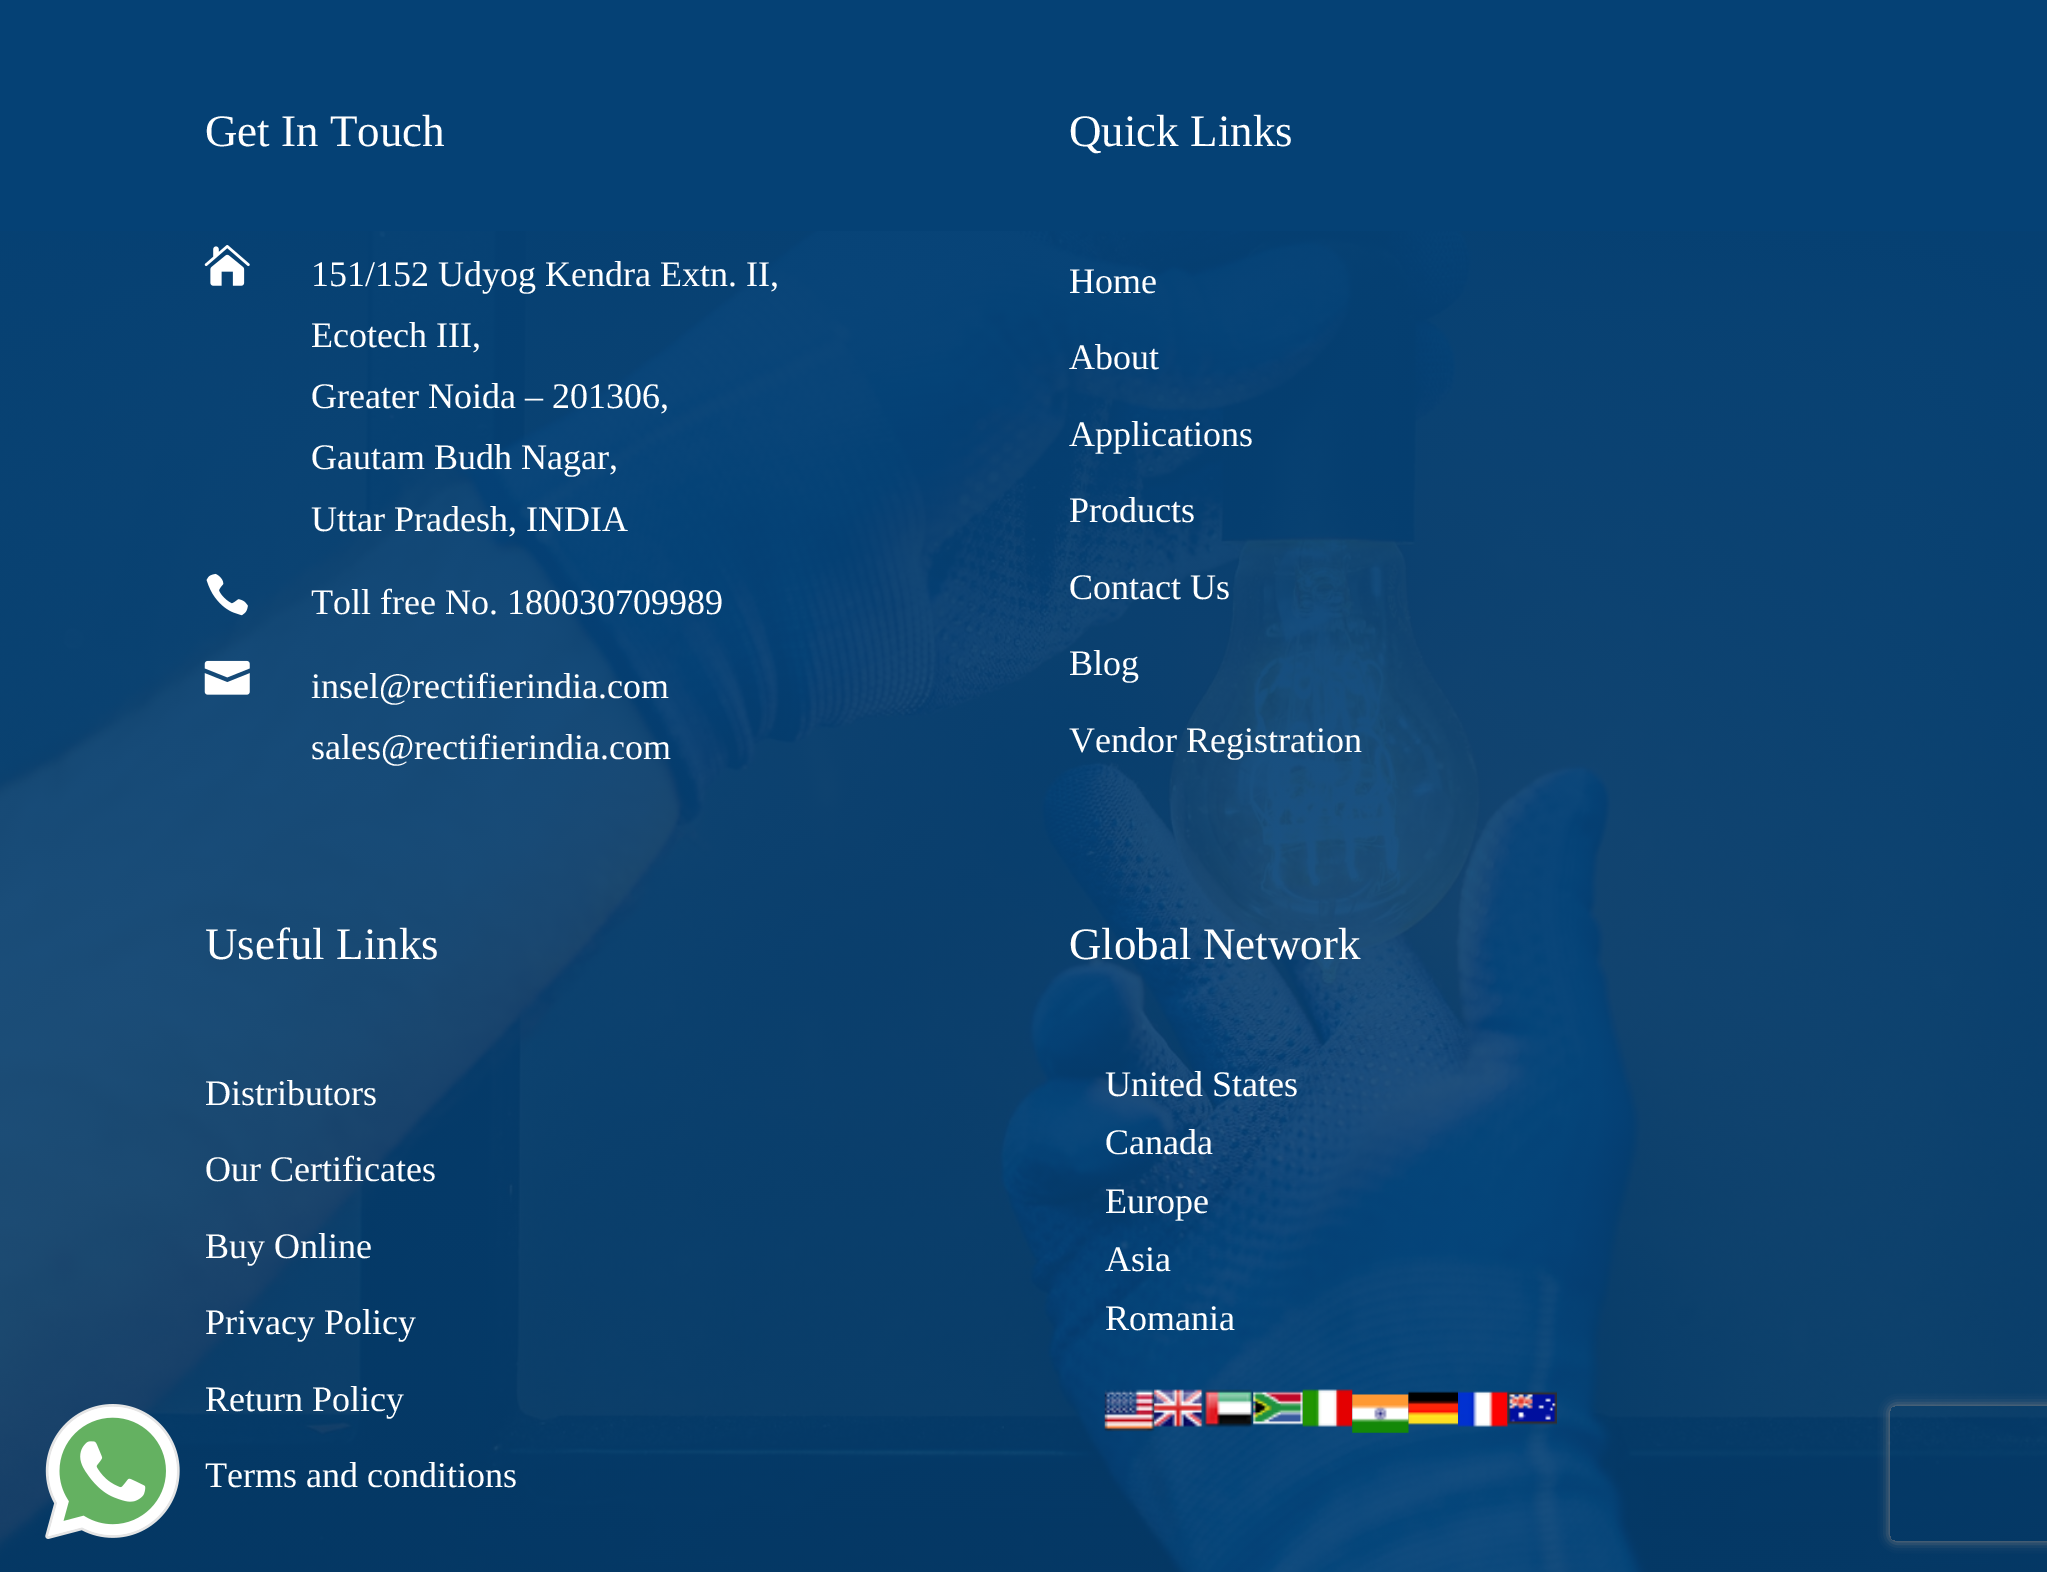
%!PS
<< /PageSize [2047 1572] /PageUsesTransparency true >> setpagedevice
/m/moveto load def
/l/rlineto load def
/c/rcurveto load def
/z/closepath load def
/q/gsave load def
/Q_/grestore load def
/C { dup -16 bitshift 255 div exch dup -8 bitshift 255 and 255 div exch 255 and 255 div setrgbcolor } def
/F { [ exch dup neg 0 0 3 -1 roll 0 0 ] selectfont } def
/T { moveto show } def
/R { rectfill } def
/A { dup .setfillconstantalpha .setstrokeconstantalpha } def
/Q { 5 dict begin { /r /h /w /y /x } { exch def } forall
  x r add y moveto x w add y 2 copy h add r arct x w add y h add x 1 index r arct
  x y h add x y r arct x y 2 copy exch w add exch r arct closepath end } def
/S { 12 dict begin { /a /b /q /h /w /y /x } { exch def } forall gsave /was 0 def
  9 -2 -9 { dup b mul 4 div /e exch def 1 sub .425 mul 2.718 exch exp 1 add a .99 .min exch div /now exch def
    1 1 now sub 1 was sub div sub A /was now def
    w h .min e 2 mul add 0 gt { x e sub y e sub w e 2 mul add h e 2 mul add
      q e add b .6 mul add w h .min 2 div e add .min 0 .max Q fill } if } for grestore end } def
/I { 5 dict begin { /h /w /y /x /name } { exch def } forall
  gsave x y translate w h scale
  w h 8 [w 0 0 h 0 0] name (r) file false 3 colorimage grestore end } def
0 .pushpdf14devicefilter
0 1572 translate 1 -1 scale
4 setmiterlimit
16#054175 C
0 0 2047 1572 R
(2.rgb) 0 231 2047 1341 I
(1.rgb) 45 1404 135 135 I
/LiberationSerif-Regular 45 F
16#FFFFFF C
(Get In Touch) 205 146 T
(3.rgb) 204 245 46 41 I
/LiberationSerif-Regular 36 F
(151/152 Udyog Kendra Extn. II,) 311 286 T
(Ecotech III,) 311 347 T
(Greater Noida – 201306,) 311 408 T
(Gautam Budh Nagar,) 311 469 T
(Uttar Pradesh, INDIA) 311 531 T
(4.rgb) 206 573 42 43 I
(Toll free No. 180030709989) 311 614 T
(5.rgb) 204 660 46 35 I
(insel@rectifierindia.com) 311 698 T
(sales@rectifierindia.com) 311 759 T
/LiberationSerif-Regular 45 F
(Quick Links) 1069 146 T
/LiberationSerif-Regular 36 F
(Home) 1069 293 T
(About) 1069 369 T
(Applications) 1069 446 T
(Products) 1069 522 T
(Contact Us) 1069 599 T
(Blog) 1069 675 T
(Vendor Registration) 1069 752 T
/LiberationSerif-Regular 45 F
(Useful Links) 205 959 T
/LiberationSerif-Regular 36 F
(Distributors) 205 1105 T
(Our Certificates) 205 1181 T
(Buy Online) 205 1258 T
(Privacy Policy) 205 1334 T
(Return Policy) 205 1411 T
(Terms and conditions) 205 1487 T
/LiberationSerif-Regular 45 F
(Global Network) 1069 959 T
/LiberationSerif-Regular 36 F
(United States) 1105 1096 T
(Canada) 1105 1154 T
(Europe) 1105 1213 T
(Asia) 1105 1271 T
(Romania) 1105 1330 T
(6.rgb) 1104 1389 51 43 I
(7.rgb) 1154 1389 49 38 I
(8.rgb) 1203 1389 51 39 I
(9.rgb) 1253 1391 50 34 I
(10.rgb) 1302 1389 51 38 I
(11.rgb) 1352 1394 57 39 I
(12.rgb) 1408 1391 50 34 I
(13.rgb) 1458 1391 50 36 I
(14.rgb) 1507 1391 50 34 I
q
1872 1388 m 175 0 l 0 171 l -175 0 l z 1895 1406 m 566 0 l 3 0 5 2 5 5 c 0 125 l 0 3 -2 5 -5 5 c -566 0 l -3 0 -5 -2 -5 -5 c 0 -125 l 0 -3 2 -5 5 -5 c z eoclip newpath
16#808080 C
1890 1406 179 135 5 5.5 1 S
Q_
.poppdf14devicefilter showpage
